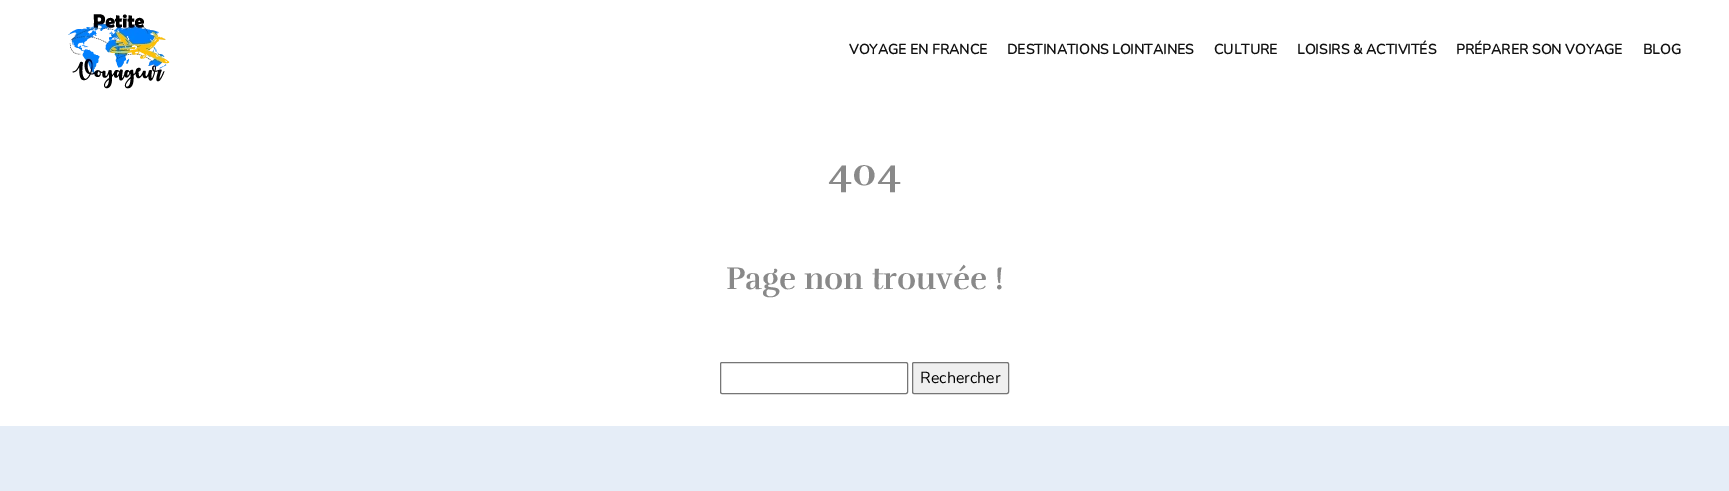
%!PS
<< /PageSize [1729 491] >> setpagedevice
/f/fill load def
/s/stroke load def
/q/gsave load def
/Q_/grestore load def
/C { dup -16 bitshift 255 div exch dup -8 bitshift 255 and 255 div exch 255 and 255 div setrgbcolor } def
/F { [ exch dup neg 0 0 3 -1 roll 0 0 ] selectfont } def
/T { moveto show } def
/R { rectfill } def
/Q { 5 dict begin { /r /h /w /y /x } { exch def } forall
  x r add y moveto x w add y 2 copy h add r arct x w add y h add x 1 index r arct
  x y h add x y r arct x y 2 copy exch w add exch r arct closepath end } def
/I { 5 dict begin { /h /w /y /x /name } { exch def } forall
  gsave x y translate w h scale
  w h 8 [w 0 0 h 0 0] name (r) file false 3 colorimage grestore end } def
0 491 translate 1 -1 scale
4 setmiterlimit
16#FFFFFF C
0 0 1729 491 R
(1.rgb) 68 14 102 75 I
/Nunito-Bold 14 F
16#111111 C
(VOYAGE EN FRANCE) 849 54 T
(DESTINATIONS LOINTAINES) 1007 54 T
(CULTURE) 1214 54 T
(LOISIRS & ACTIVITÉS) 1297 54 T
(PRÉPARER SON VOYAGE) 1456 54 T
(BLOG) 1643 54 T
/Rufina-Bold 40 F
16#898989 C
(404) 828 185 T
/Rufina-Bold 32 F
(Page non trouvée !) 726 289 T
16#767676 C
720.5 362.5 187 31 1.5 Q s
16#EFEFEF C
912.5 362.5 96 31 1.5 Q q f Q_
16#767676 C
s
/Nunito-ExtraLight 16 F
16#000000 C
(Rechercher) 920 383 T
16#E5EDF7 C
0 426 1729 65 R
showpage
